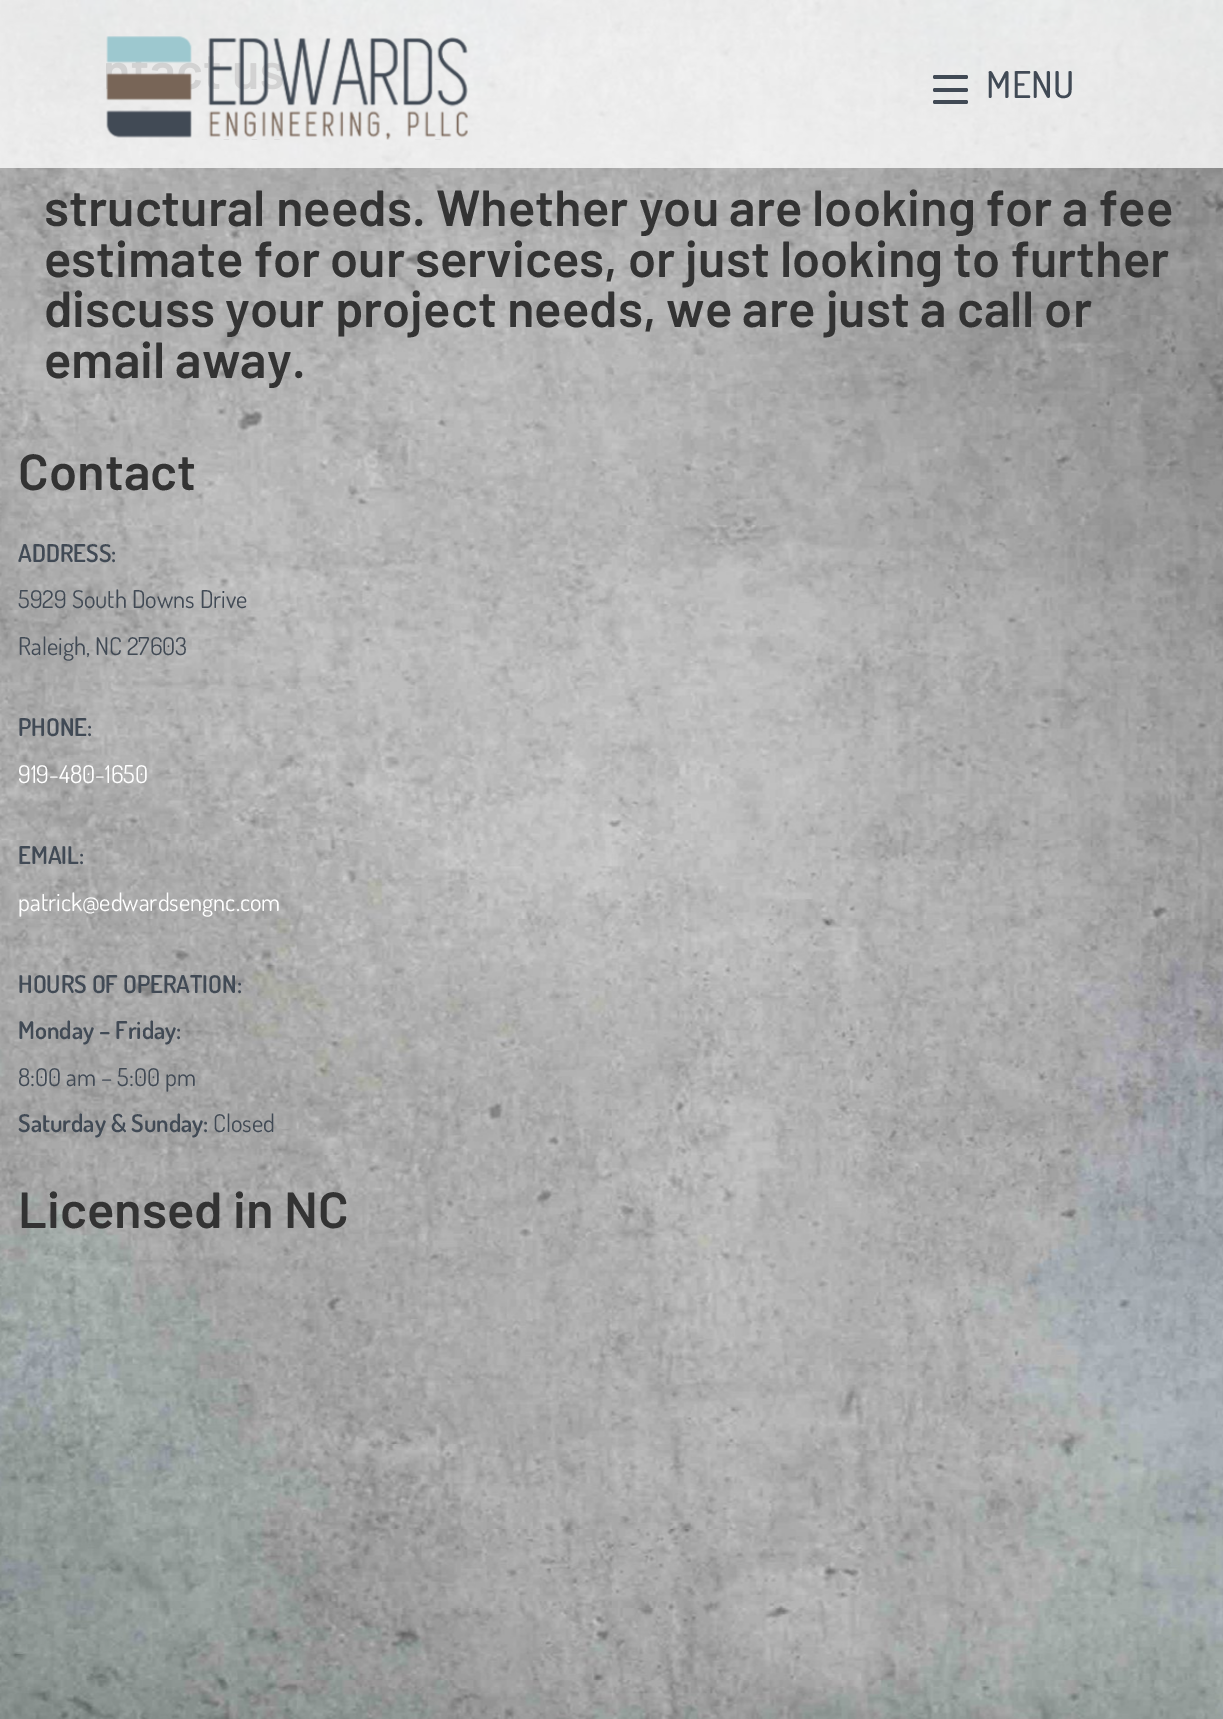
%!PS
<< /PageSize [1223 1719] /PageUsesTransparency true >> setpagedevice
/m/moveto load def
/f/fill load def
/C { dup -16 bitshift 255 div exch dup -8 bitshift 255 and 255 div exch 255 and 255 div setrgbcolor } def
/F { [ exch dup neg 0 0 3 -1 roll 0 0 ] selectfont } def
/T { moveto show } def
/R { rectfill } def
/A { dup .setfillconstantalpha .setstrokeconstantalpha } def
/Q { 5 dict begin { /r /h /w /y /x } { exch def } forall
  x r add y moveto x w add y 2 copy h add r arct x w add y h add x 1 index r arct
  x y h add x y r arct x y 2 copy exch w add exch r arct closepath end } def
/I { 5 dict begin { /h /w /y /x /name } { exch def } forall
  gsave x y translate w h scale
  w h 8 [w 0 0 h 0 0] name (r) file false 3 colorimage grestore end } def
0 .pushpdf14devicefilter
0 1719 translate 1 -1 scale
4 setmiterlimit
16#FFFFFF C
0 0 1223 1719 R
(1.rgb) 0 0 1223 1719 I
0.78 A
0 0 1223 168 R
1 A
(2.rgb) 106 36 362 104 I
16#414A55 C
933 75 35 4 2 Q f
933 88 35 4 2 Q f
933 100 35 4 2 Q f
/Dosis-Medium 37 F
986 98 m .5 0 (MENU) ashow
/Barlow-SemiBold 50.75 F
16#333333 C
(structural needs. Whether you are looking for a fee) 44 226 T
(estimate for our services, or just looking to further) 44 277 T
(discuss your project needs, we are just a call or) 44 327 T
(email away.) 44 378 T
(Contact) 18 490 T
/Dosis-SemiBold 24.5 F
16#414A55 C
(ADDRESS:) 18 562 T
/Dosis-Regular 24.5 F
(5929 South Downs Drive) 18 608 T
(Raleigh, NC 27603) 18 655 T
/Dosis-SemiBold 24.5 F
(PHONE:) 18 736 T
/Dosis-Regular 24.5 F
16#FFFFFF C
(919-480-1650) 18 783 T
/Dosis-SemiBold 24.5 F
16#414A55 C
(EMAIL:) 18 864 T
/Dosis-Regular 24.5 F
16#FFFFFF C
(patrick@edwardsengnc.com) 18 911 T
/Dosis-SemiBold 24.5 F
16#414A55 C
(HOURS OF OPERATION:) 18 993 T
(Monday – Friday:) 18 1039 T
/Dosis-Regular 24.5 F
(8:00 am – 5:00 pm) 18 1086 T
/Dosis-SemiBold 24.5 F
(Saturday & Sunday:) 18 1132 T
/Dosis-Regular 24.5 F
(Closed) 213 1132 T
/Barlow-SemiBold 50.75 F
16#333333 C
(Licensed in NC) 18 1228 T
.poppdf14devicefilter showpage
